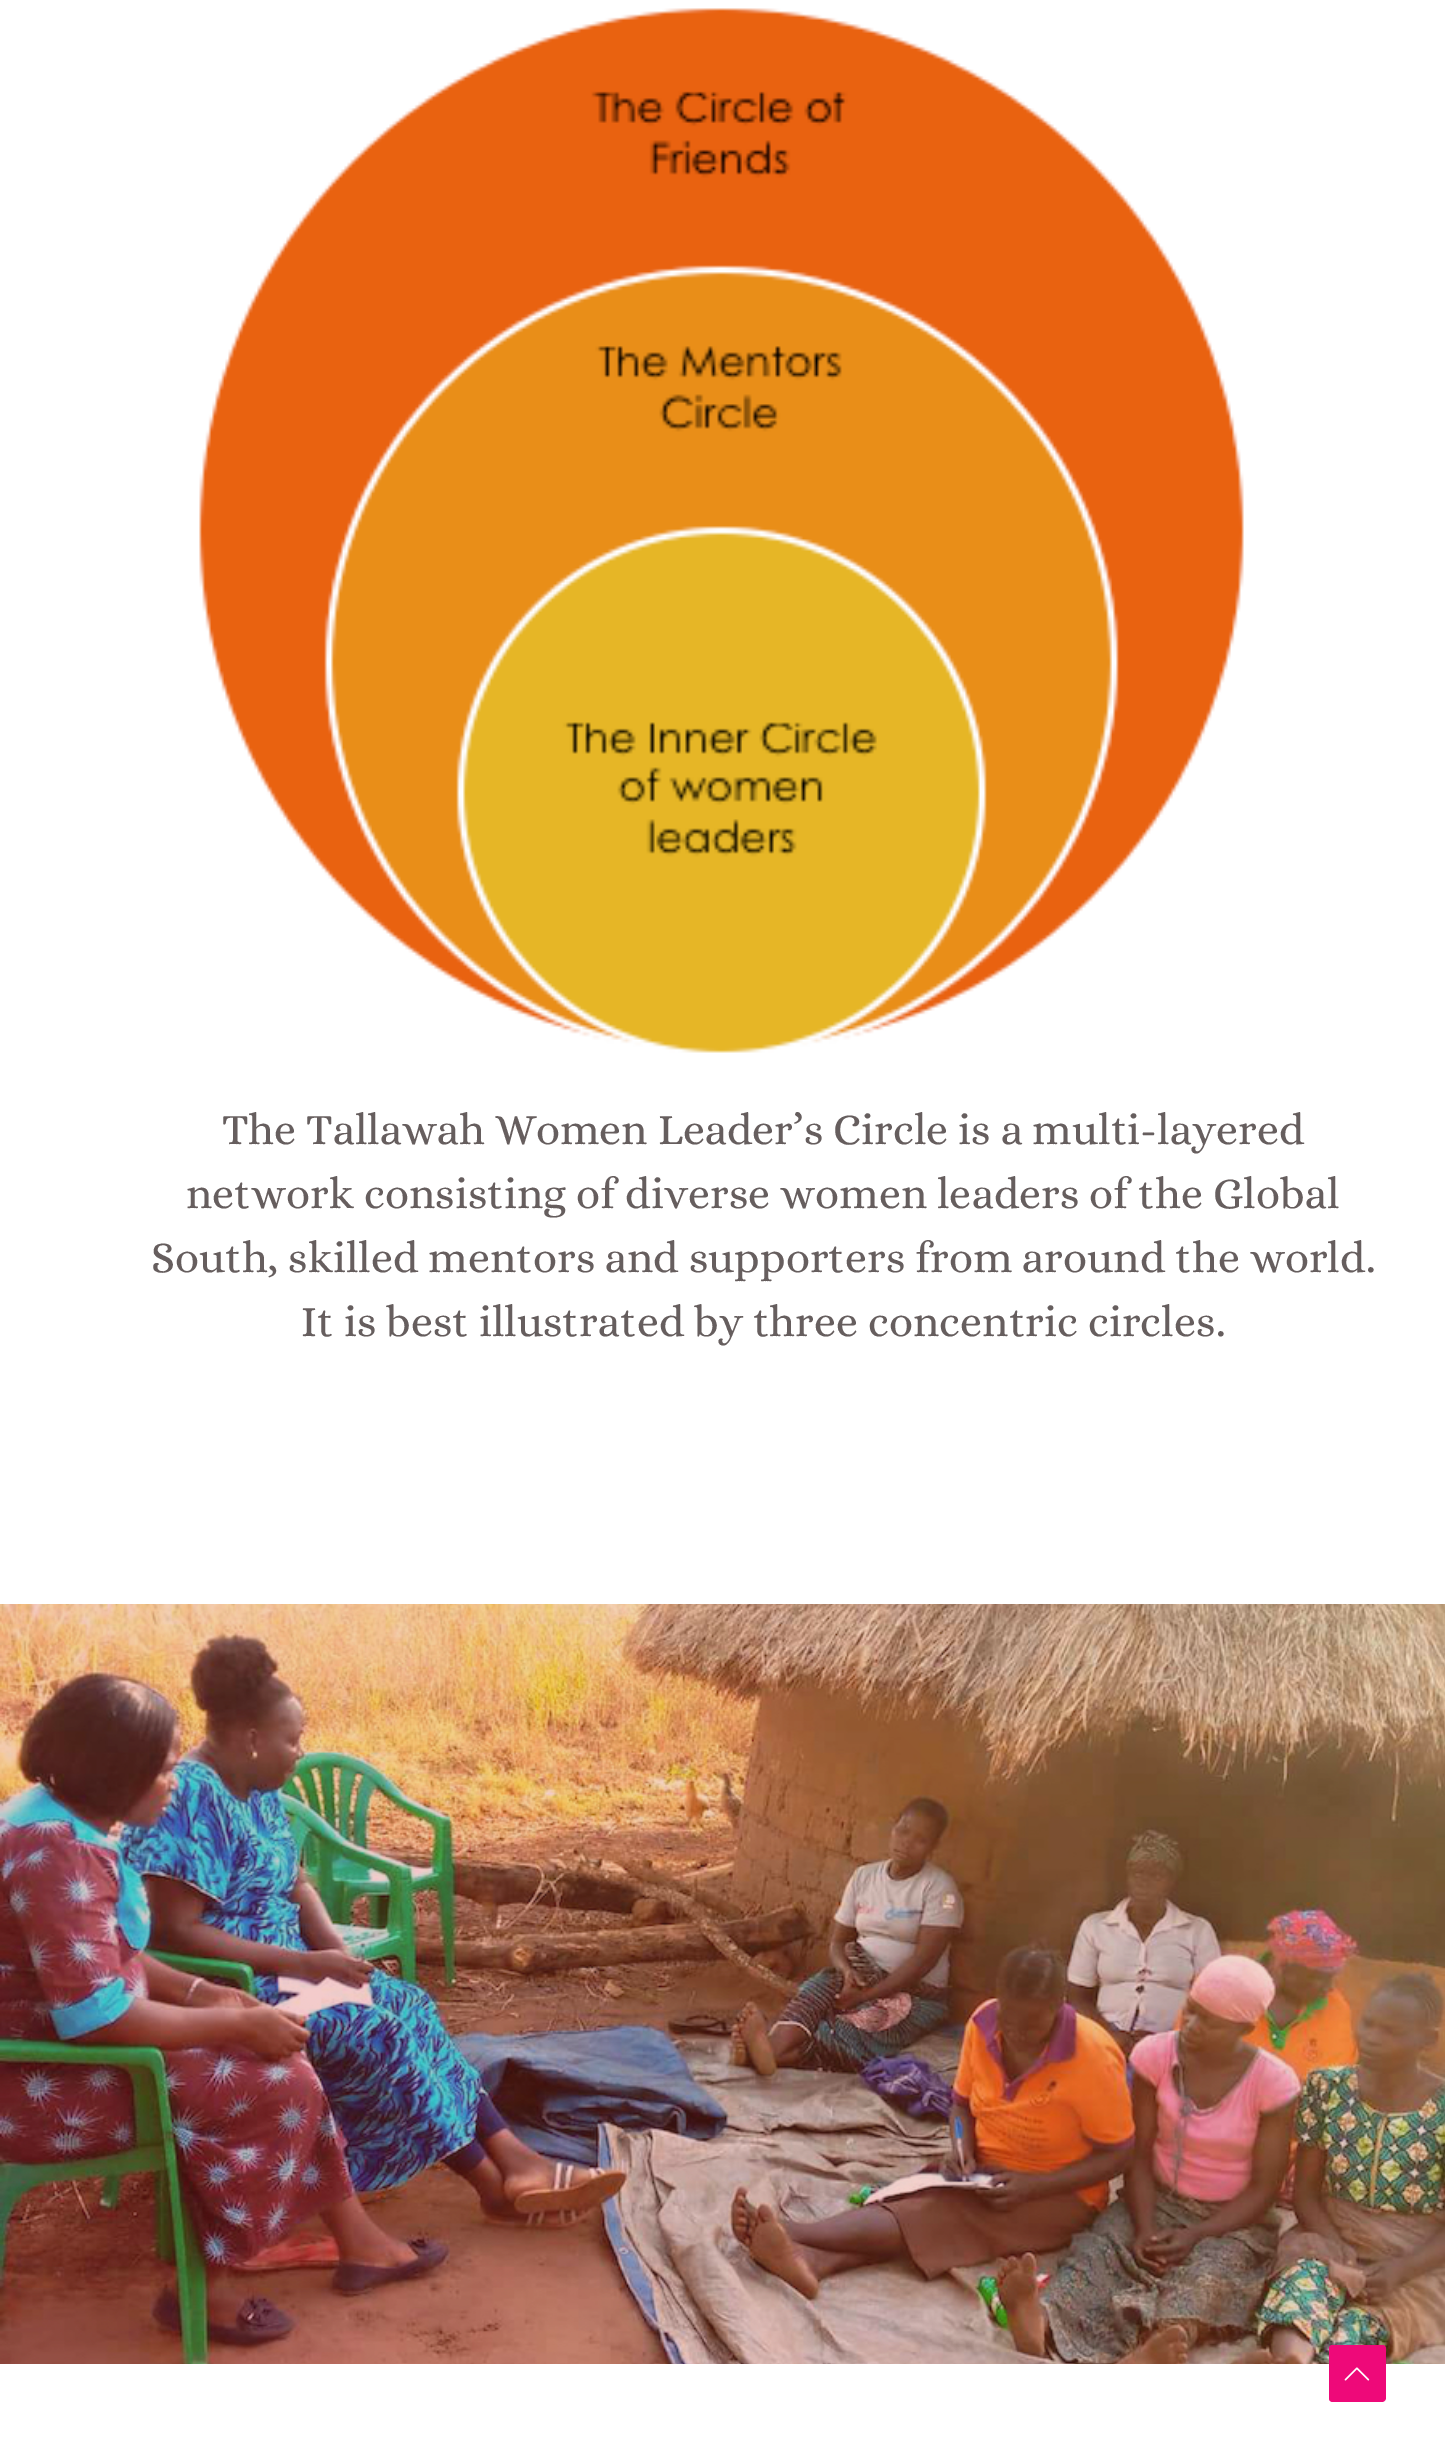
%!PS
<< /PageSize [1445 2462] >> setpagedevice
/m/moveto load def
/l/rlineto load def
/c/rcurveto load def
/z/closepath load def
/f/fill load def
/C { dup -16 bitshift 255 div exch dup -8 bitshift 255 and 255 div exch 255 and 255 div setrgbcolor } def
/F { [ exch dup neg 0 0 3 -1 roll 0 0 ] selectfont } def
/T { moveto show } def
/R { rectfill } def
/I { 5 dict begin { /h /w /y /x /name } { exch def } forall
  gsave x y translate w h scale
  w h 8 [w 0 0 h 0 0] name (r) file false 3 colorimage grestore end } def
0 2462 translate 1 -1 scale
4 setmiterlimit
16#FFFFFF C
0 0 1445 2462 R
(1.rgb) 199 8 1045 1045 I
/Alice-Regular 44 F
16#665E5E C
(The Tallawah Women Leader’s Circle is a multi-layered) 222 1144 T
(network consisting of diverse women leaders of the Global) 186 1208 T
(South, skilled mentors and supporters from around the world.) 151 1272 T
(It is best illustrated by three concentric circles.) 301 1336 T
(2.rgb) 0 1604 1445 760 I
16#EE0979 C
1382 2402 m -49 0 l -3 0 -4 -2 -4 -4 c 0 -49 l 0 -3 1 -4 4 -4 c 49 0 l 2 0 4 1 4 4 c 0 49 l 0 2 -2 4 -4 4 c z f
(3.rgb) 1344 2367 26 14 I
showpage
